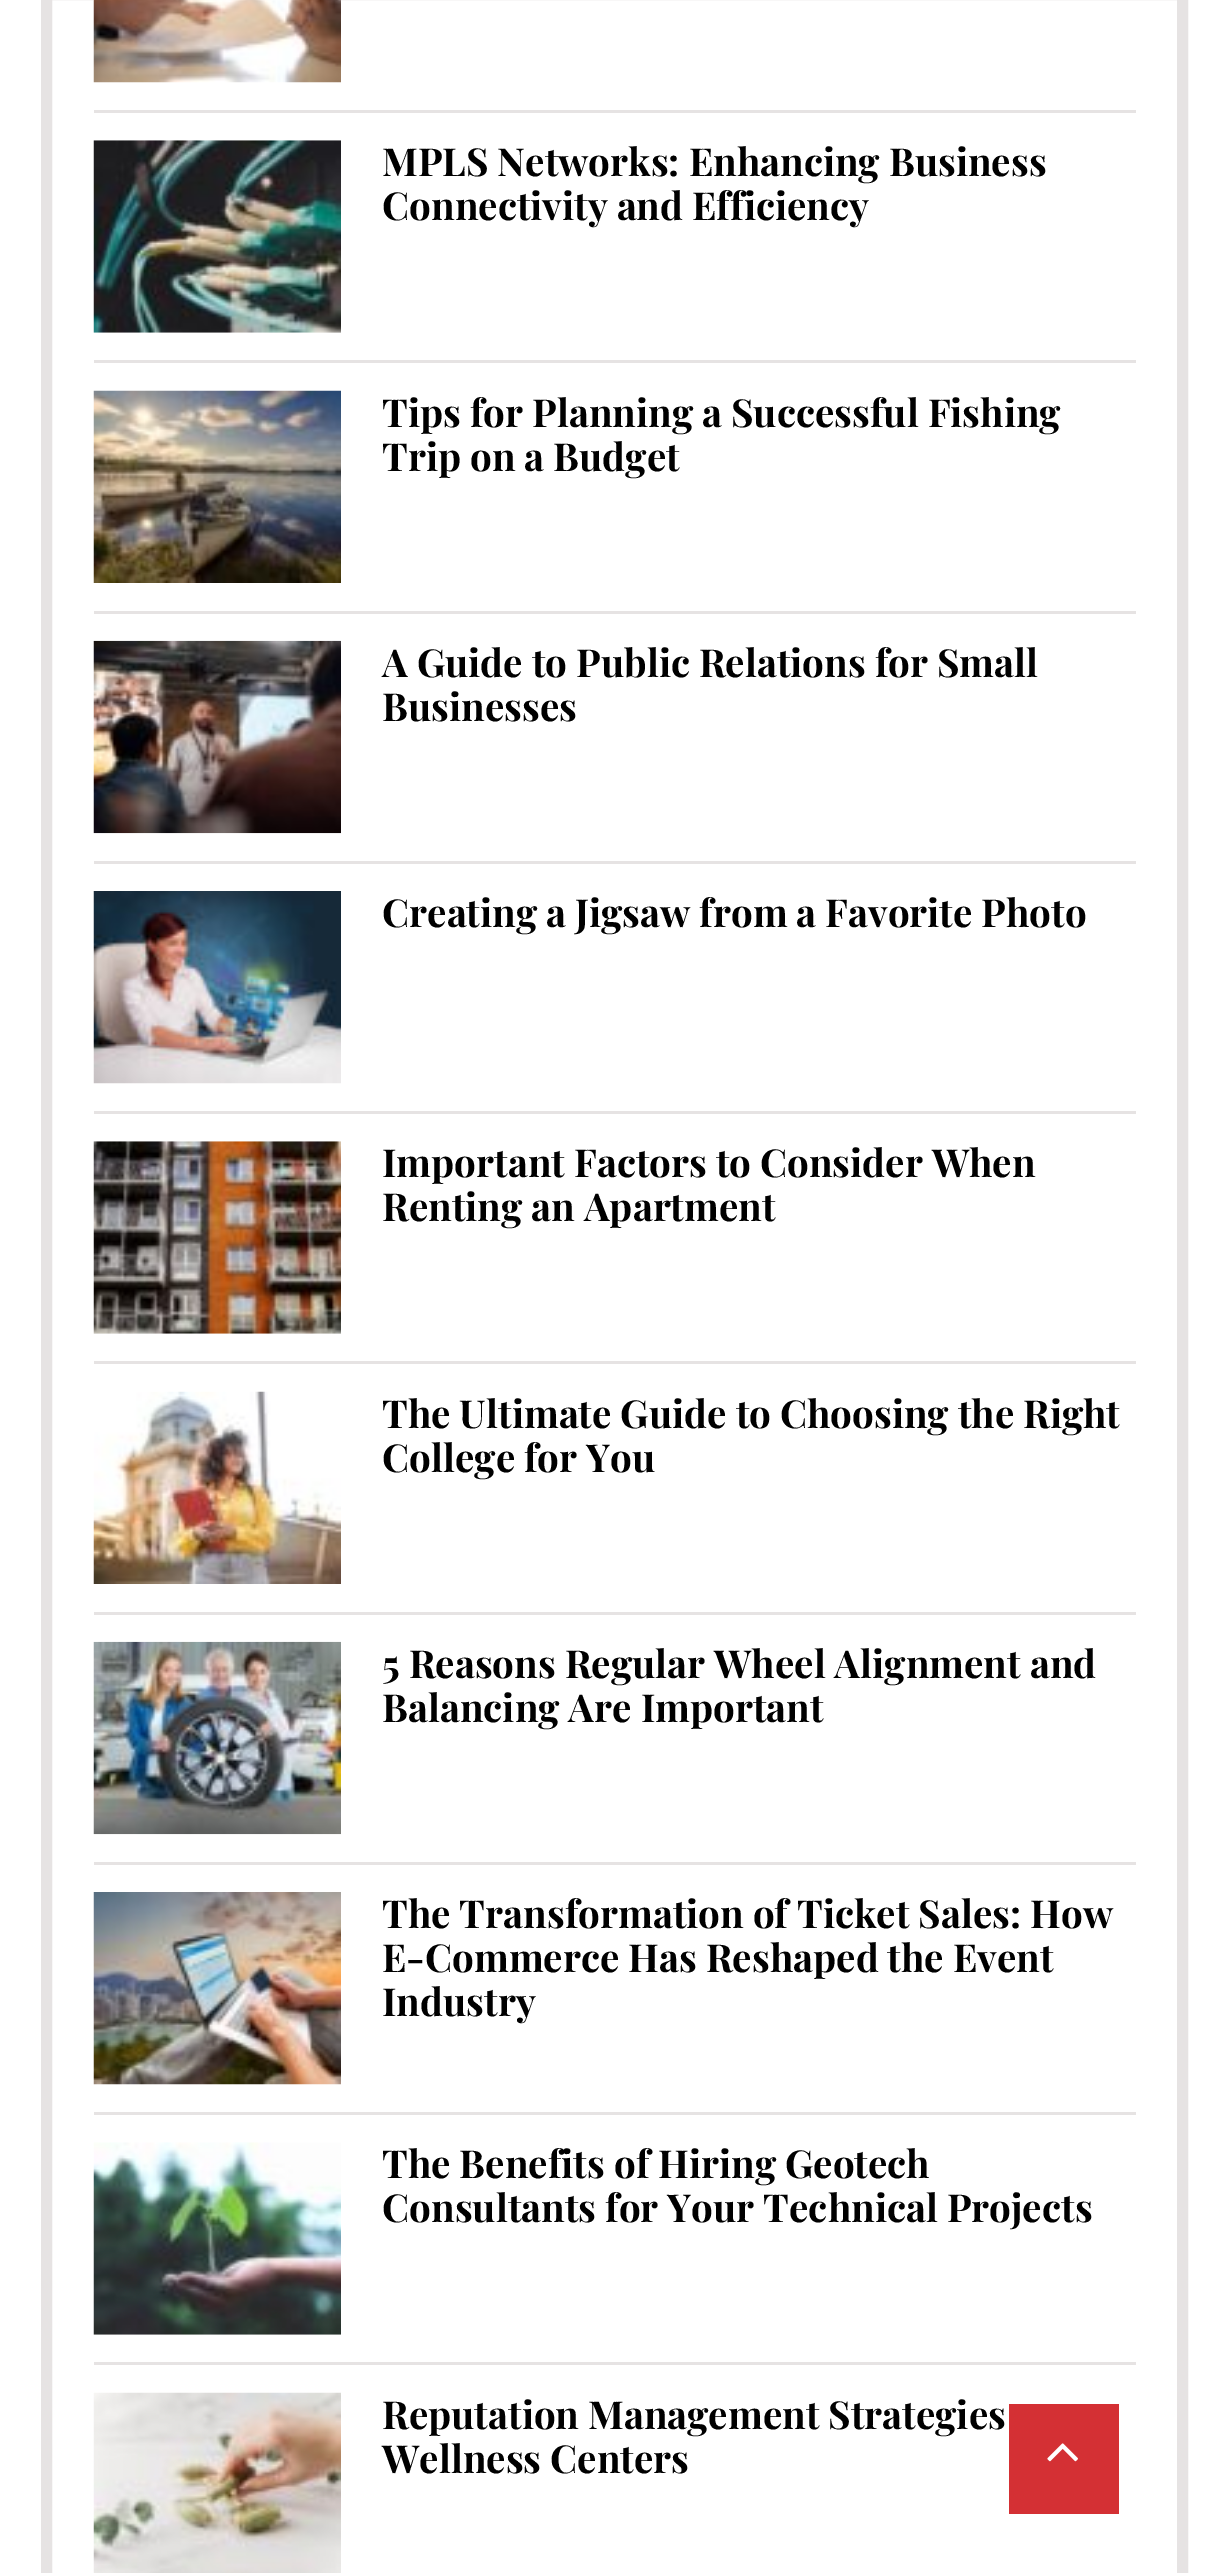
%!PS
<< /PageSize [1229 2573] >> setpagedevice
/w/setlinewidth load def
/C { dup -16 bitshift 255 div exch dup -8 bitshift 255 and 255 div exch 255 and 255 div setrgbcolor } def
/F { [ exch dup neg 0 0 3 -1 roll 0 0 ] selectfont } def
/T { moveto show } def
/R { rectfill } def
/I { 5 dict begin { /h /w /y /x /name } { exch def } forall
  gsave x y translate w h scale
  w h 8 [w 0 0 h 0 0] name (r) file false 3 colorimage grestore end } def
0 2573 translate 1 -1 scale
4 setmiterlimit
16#FFFFFF C
0 0 1229 2573 R
16#E6E3E3 C
11 w
46.5 -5.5 1136 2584 rectstroke
94 110 1042 3 R
(1.rgb) 93 0 248 83 I
94 360 1042 3 R
(2.rgb) 93 140 248 193 I
/PlayfairDisplay-Bold 38.5 F
16#000000 C
(MPLS Networks: Enhancing Business) 382 176 T
(Connectivity and Efficiency) 382 220 T
16#E6E3E3 C
94 611 1042 3 R
(3.rgb) 93 390 248 193 I
16#000000 C
(Tips for Planning a Successful Fishing) 382 427 T
(Trip on a Budget) 382 471 T
16#E6E3E3 C
94 861 1042 3 R
(4.rgb) 93 640 248 194 I
16#000000 C
(A Guide to Public Relations for Small) 382 677 T
(Businesses) 382 721 T
16#E6E3E3 C
94 1111 1042 3 R
(5.rgb) 93 891 248 193 I
16#000000 C
(Creating a Jigsaw from a Favorite Photo) 382 927 T
16#E6E3E3 C
94 1361 1042 3 R
(6.rgb) 93 1141 248 193 I
16#000000 C
(Important Factors to Consider When) 382 1177 T
(Renting an Apartment) 382 1221 T
16#E6E3E3 C
94 1612 1042 3 R
(7.rgb) 93 1391 248 193 I
16#000000 C
(The Ultimate Guide to Choosing the Right) 382 1428 T
(College for You) 382 1472 T
16#E6E3E3 C
94 1862 1042 3 R
(8.rgb) 93 1641 248 194 I
16#000000 C
(5 Reasons Regular Wheel Alignment and) 382 1678 T
(Balancing Are Important) 382 1722 T
16#E6E3E3 C
94 2112 1042 3 R
(9.rgb) 93 1892 248 193 I
16#000000 C
(The Transformation of Ticket Sales: How) 382 1928 T
(E-Commerce Has Reshaped the Event) 382 1972 T
(Industry) 382 2016 T
16#E6E3E3 C
94 2362 1042 3 R
(10.rgb) 93 2142 248 193 I
16#000000 C
(The Benefits of Hiring Geotech) 382 2178 T
(Consultants for Your Technical Projects) 382 2222 T
(11.rgb) 93 2392 248 181 I
(Reputation Management Strategies) 382 2429 T
(Wellness Centers) 382 2473 T
16#D43034 C
1009 2404 110 110 R
(12.rgb) 1047 2443 31 19 I
showpage
